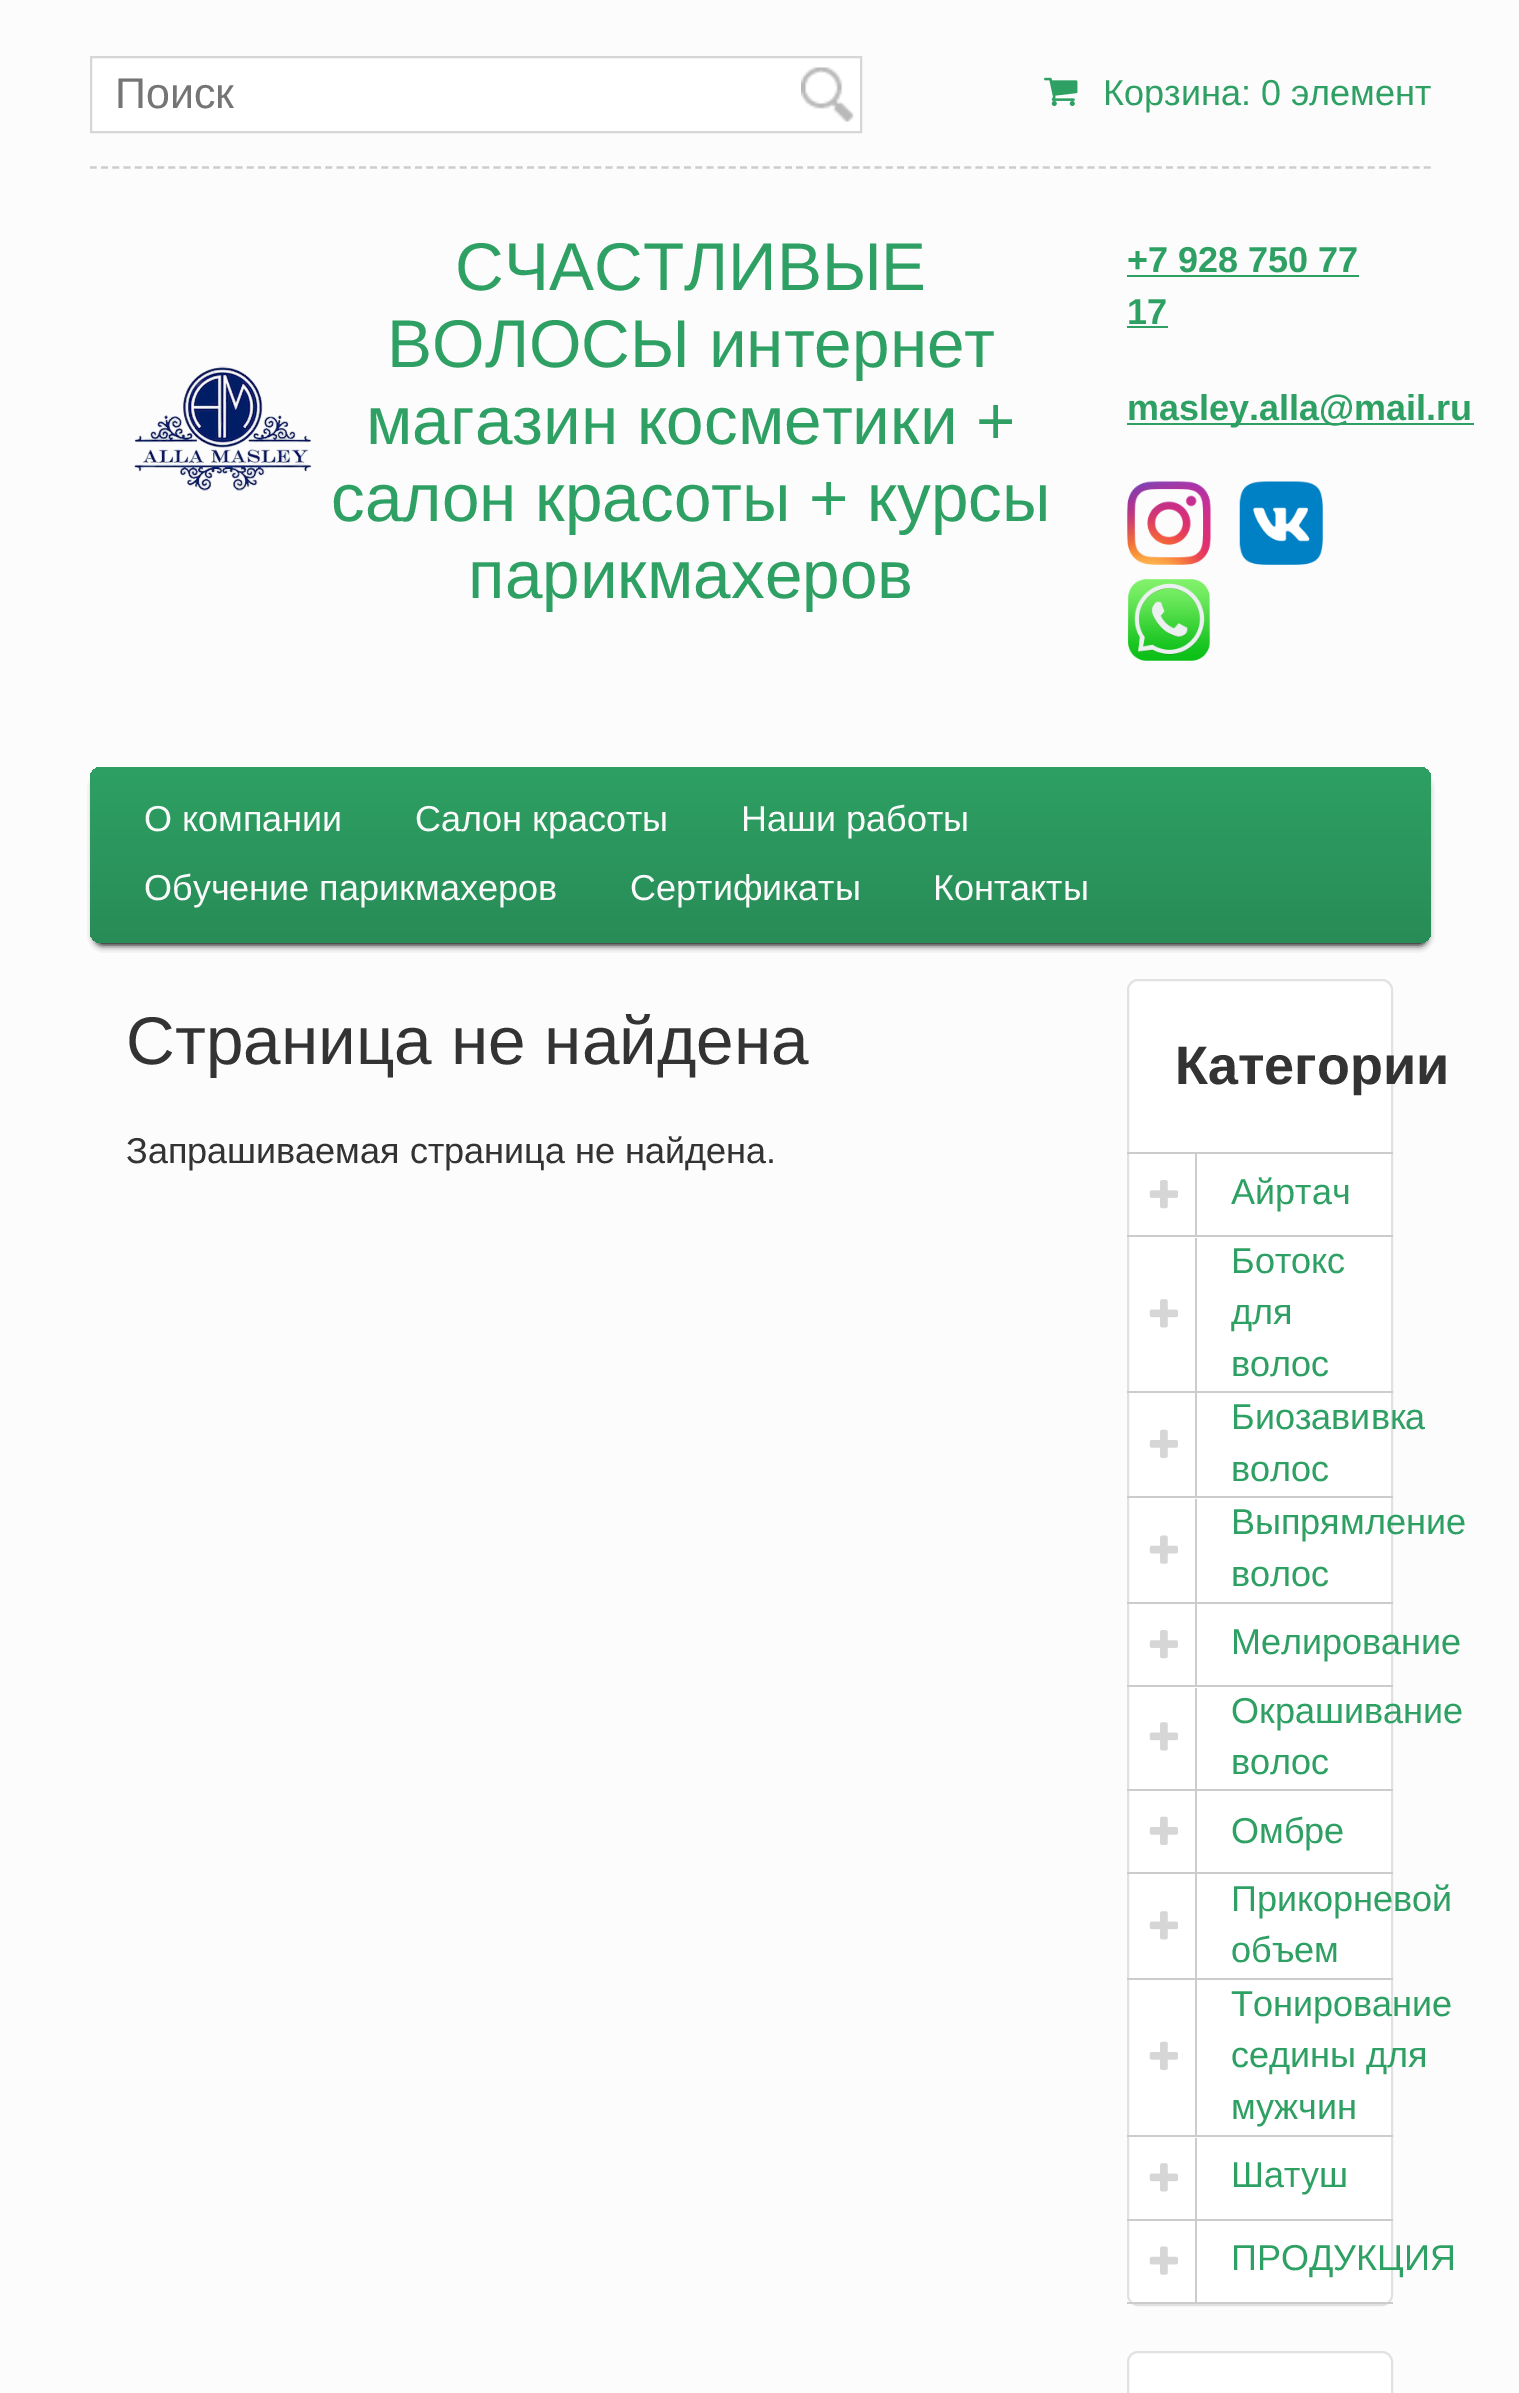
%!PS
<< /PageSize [1519 2393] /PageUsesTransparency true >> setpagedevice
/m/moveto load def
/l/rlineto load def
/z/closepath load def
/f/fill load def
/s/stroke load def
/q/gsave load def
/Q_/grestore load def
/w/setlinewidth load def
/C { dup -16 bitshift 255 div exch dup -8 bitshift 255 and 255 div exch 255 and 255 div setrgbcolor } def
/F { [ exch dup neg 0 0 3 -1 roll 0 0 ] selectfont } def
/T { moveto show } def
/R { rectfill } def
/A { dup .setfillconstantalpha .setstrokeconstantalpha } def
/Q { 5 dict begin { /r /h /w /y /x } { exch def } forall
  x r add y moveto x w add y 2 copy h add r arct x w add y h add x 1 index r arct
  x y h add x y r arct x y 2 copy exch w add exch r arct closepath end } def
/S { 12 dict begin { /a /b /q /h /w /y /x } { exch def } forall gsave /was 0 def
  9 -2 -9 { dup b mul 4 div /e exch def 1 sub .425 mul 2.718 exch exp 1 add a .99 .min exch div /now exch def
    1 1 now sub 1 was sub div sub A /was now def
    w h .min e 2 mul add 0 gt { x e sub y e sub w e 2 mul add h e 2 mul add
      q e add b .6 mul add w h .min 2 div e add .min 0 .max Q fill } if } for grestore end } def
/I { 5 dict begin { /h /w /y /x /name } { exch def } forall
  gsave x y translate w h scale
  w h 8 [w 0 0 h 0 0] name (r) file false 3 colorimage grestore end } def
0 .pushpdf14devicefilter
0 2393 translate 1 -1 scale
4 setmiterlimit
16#FCFCFC C
0 0 1519 2393 R
16#CCCCCC C
2.2 w
[6.75 4.46] 0 setdash
90 167.5 m 1341 0 l s
16#FFFFFF C
91 57 m 770 0 l 0 75 l -770 0 l z q f Q_
16#D6D6D6 C
2 w
[] 0 setdash
s
/LiberationSans-Regular 43 F
16#757575 C
(Поиск) 115 108 T
(1.rgb) 801 67 53 55 I
(2.rgb) 1044 77 34 30 I
/LiberationSans-Regular 36 F
16#2EA063 C
(Корзина: 0 элемент) 1103 105 T
(3.rgb) 134 366 178 125 I
/LiberationSans-Regular 67.5 F
(СЧАСТЛИВЫЕ) 455 290 T
(ВОЛОСЫ интернет) 387 367 T
(магазин косметики +) 366 444 T
(салон красоты + курсы) 331 521 T
(парикмахеров) 468 598 T
/LiberationSans-Bold 36 F
(+7 928 750 77) 1127 272 T
1127 275 232 2 R
(17) 1127 324 T
1127 326 41 2 R
1127 423 347 2 R
(masley.alla@mail.ru) 1127 420 T
(4.rgb) 1127 481 84 84 I
(5.rgb) 1239 481 84 84 I
(6.rgb) 1128 579 82 82 I
16#000000 C
95 779 1332 166 7 3.5 1 S
q 90 767 1341 176 11 Q clip newpath
<< /ShadingType 2 /ColorSpace /DeviceRGB /Coords [761 767 761 943] /Extend [true true] /Function << /FunctionType 2 /Domain [0 1] /C0 [.18 .627 .388] /C1 [.157 .549 .341] /N 1 >> >> shfill Q_
/LiberationSans-Regular 36 F
16#FAFAFA C
(О компании) 144 831 T
(Салон красоты) 415 831 T
(Наши работы) 741 831 T
(Обучение парикмахеров) 144 900 T
(Сертификаты) 630 900 T
(Контакты) 933 900 T
/LiberationSans-Regular 67.5 F
16#333333 C
(Страница не найдена) 126 1064 T
/LiberationSans-Regular 36 F
(Запрашиваемая страница не найдена.) 126 1163 T
16#FFFFFF C
1128 980 264 1325 10 Q q f Q_
16#E1E1E1 C
s
/LiberationSans-Bold 54 F
16#333333 C
(Категории) 1175 1084 T
16#CCCCCC C
1127 1152 266 2 R
1127 1235 266 2 R
(7.rgb) 1149 1180 29 29 I
1195 1154 2 81 R
/LiberationSans-Regular 36 F
16#2EA063 C
(Айртач) 1231 1204 T
16#CCCCCC C
1127 1391 266 2 R
(8.rgb) 1149 1299 29 29 I
1195 1238 2 153 R
16#2EA063 C
(Ботокс) 1231 1273 T
(для) 1231 1324 T
(волос) 1231 1376 T
16#CCCCCC C
1127 1496 266 2 R
(9.rgb) 1149 1429 29 29 I
1195 1393 2 103 R
16#2EA063 C
(Биозавивка) 1231 1429 T
(волос) 1231 1481 T
16#CCCCCC C
1127 1602 266 2 R
(10.rgb) 1149 1535 29 29 I
1195 1499 2 103 R
16#2EA063 C
(Выпрямление) 1231 1534 T
(волос) 1231 1586 T
16#CCCCCC C
1127 1685 266 2 R
(7.rgb) 1149 1630 29 29 I
1195 1604 2 81 R
16#2EA063 C
(Мелирование) 1231 1654 T
16#CCCCCC C
1127 1789 266 2 R
(8.rgb) 1149 1722 29 29 I
1195 1688 2 101 R
16#2EA063 C
(Окрашивание) 1231 1723 T
(волос) 1231 1774 T
16#CCCCCC C
1127 1872 266 2 R
(9.rgb) 1149 1816 29 29 I
1195 1791 2 81 R
16#2EA063 C
(Омбре) 1231 1843 T
16#CCCCCC C
1127 1978 266 2 R
(8.rgb) 1149 1911 29 29 I
1195 1874 2 104 R
16#2EA063 C
(Прикорневой) 1231 1911 T
(объем) 1231 1962 T
16#CCCCCC C
1127 2135 266 2 R
(9.rgb) 1149 2041 29 29 I
1195 1980 2 155 R
16#2EA063 C
(Тонирование) 1231 2016 T
(седины для) 1231 2067 T
(мужчин) 1231 2119 T
16#CCCCCC C
1127 2219 266 2 R
(8.rgb) 1149 2163 29 29 I
1195 2138 2 81 R
16#2EA063 C
(Шатуш) 1231 2187 T
16#CCCCCC C
1127 2302 266 2 R
(10.rgb) 1149 2246 29 29 I
1195 2221 2 81 R
16#2EA063 C
(ПРОДУКЦИЯ) 1231 2270 T
16#FFFFFF C
1128 2352 264 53 10 Q q f Q_
16#E1E1E1 C
s
.poppdf14devicefilter showpage
